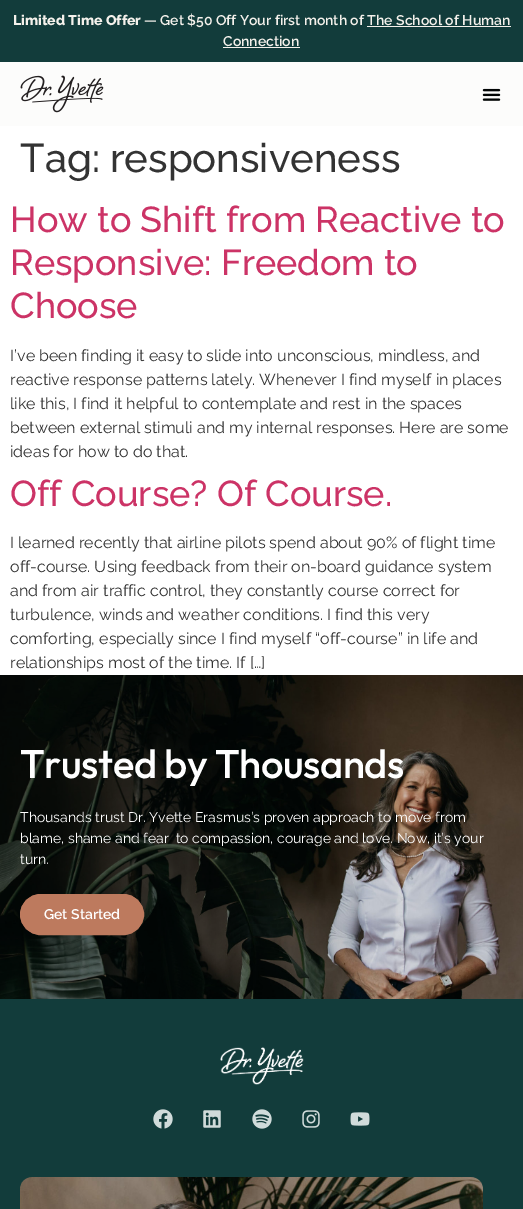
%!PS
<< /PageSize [523 1209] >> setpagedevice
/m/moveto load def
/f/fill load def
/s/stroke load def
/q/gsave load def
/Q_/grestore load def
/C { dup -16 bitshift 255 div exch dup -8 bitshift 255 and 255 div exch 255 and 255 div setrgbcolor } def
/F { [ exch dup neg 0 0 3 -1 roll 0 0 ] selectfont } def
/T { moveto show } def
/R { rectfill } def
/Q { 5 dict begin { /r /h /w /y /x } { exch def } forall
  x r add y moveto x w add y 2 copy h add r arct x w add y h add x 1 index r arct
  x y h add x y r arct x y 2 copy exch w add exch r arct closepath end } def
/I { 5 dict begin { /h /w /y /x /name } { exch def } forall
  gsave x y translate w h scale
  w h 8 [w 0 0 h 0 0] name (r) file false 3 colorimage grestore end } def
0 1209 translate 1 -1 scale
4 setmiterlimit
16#FFFFFF C
0 0 523 1209 R
16#123C3B C
0 0 523 62 R
/Raleway-ExtraBold 14 F
16#F4F1EB C
(Limited Time Offer) 13 25 T
/Raleway-SemiBold 14 F
(— Get $50 Off Your first month of The School of Human) 144 25 T
(Connection) 223 46 T
367 26 144 1 R
223 47 77 1 R
16#FCFCFB C
0 62 523 64 R
(1.rgb) 20 75 84 38 I
(2.rgb) 482 88 19 13 I
/Raleway-Medium 40 F
16#333333 C
(Tag: responsiveness) 20 172 T
/Raleway-Medium 36 F
16#CC3366 C
(How to Shift from Reactive to) 10 232 T
(Responsive: Freedom to) 10 275 T
(Choose) 10 318 T
/Raleway-Regular 16 F
16#333333 C
(I’ve been finding it easy to slide into unconscious, mindless, and) 10 361 T
(reactive response patterns lately. Whenever I find myself in places) 10 385 T
(like this, I find it helpful to contemplate and rest in the spaces) 10 409 T
(between external stimuli and my internal responses. Here are some) 10 433 T
(ideas for how to do that.) 10 457 T
/Raleway-Medium 36 F
16#CC3366 C
(Off Course? Of Course.) 10 506 T
/Raleway-Regular 16 F
16#333333 C
(I learned recently that airline pilots spend about 90% of flight time) 10 548 T
(off-course. Using feedback from their on-board guidance system) 10 572 T
(and from air traffic control, they constantly course correct for) 10 596 T
(turbulence, winds and weather conditions. I find this very) 10 620 T
(comforting, especially since I find myself “off-course” in life and) 10 644 T
(relationships most of the time. If […]) 10 668 T
(3.rgb) 0 675 523 324 I
/Outfit-Medium 40 F
16#FFFFFF C
20 778 m -.4 0 (Trusted by Thousands) ashow
/Raleway-Regular 14 F
(Thousands trust Dr. Yvette Erasmus’s proven approach to move from) 20 822 T
(blame, shame and fear  to compassion, courage and love. Now, it’s your) 20 843 T
(turn.) 20 864 T
16#BD7A5E C
20.5 894.5 123 40 20 Q q f Q_
s
/Raleway-SemiBold 14 F
16#FFFFFF C
(Get Started) 44 919 T
16#123C3B C
0 999 523 210 R
(4.rgb) 220 1047 84 38 I
(5.rgb) 153 1109 20 20 I
(6.rgb) 203 1110 18 18 I
(7.rgb) 252 1109 20 20 I
(8.rgb) 302 1110 18 18 I
(9.rgb) 350 1112 20 14 I
(10.rgb) 20 1177 463 32 I
showpage
